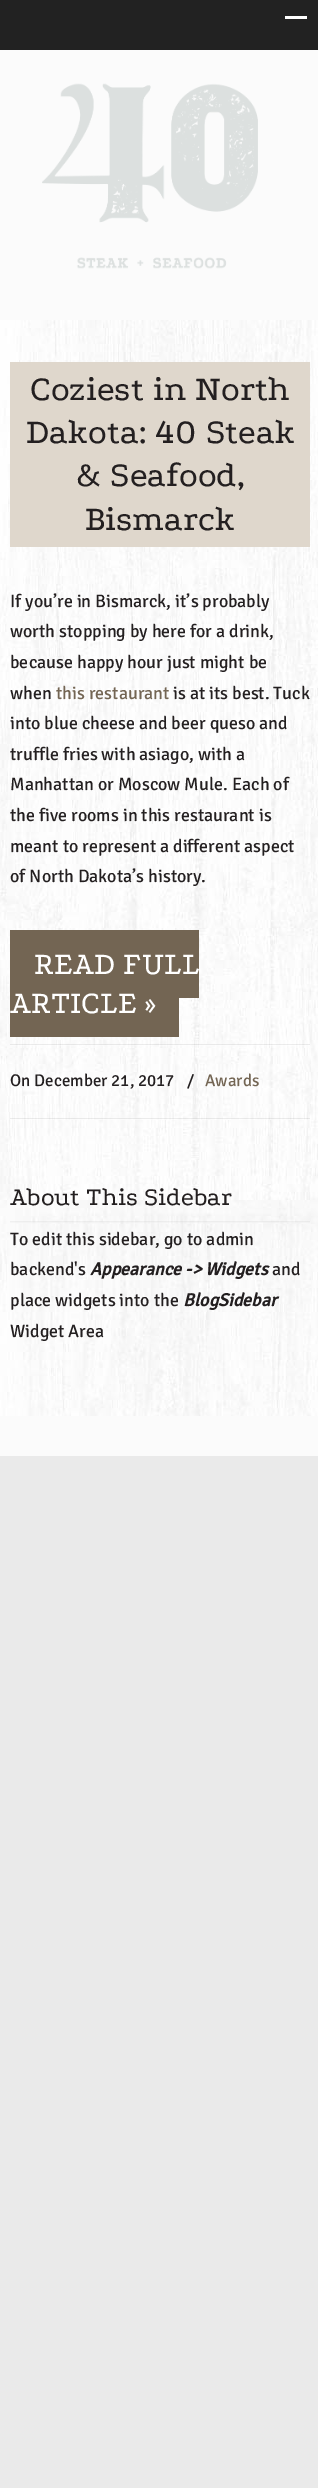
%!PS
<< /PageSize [318 2488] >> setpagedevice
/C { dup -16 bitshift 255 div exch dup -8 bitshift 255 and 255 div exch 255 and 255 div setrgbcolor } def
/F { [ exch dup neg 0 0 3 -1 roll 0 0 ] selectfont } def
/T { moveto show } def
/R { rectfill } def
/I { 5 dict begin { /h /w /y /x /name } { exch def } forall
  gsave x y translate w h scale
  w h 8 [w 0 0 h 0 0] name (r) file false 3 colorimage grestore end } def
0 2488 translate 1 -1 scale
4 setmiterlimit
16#EAEAEA C
0 0 318 2488 R
16#222222 C
0 0 318 50 R
16#FFFFFF C
285 16 22 3 R
16#FBFBFB C
0 50 318 1406 R
(1.rgb) 42 83 216 186 I
(2.rgb) 0 320 318 1096 I
16#DFD7CC C
10 362 300 185 R
/Podkova-Regular 36 F
16#231F20 C
(Coziest in North) 30 400 T
(Dakota: 40 Steak) 26 443 T
(& Seafood,) 76 486 T
(Bismarck) 85 530 T
/Signika-Light 18 F
(If you’re in Bismarck, it’s probably) 10 607 T
(worth stopping by here for a drink,) 10 637 T
(because happy hour just might be) 10 668 T
(when) 10 699 T
16#736553 C
(this restaurant) 56 699 T
16#231F20 C
(is at its best. Tuck) 173 699 T
(into blue cheese and beer queso and) 10 729 T
(truffle fries with asiago, with a) 10 760 T
(Manhattan or Moscow Mule. Each of) 10 790 T
(the five rooms in this restaurant is) 10 821 T
(meant to represent a different aspect) 10 852 T
(of North Dakota’s history.) 10 882 T
16#736553 C
10 930 189 68 R
/Podkova-Regular 32.5 F
16#FFFFFF C
(READ FULL) 34 974 T
16#736553 C
10 998 169 39 R
16#FFFFFF C
(ARTICLE ») 10 1013 T
(3.rgb) 10 1044 300 2 I
/Signika-Light 17 F
16#231F20 C
(On December 21, 2017) 10 1086 T
(/) 187 1086 T
16#736553 C
(Awards) 205 1086 T
(4.rgb) 10 1118 300 2 I
(5.rgb) 10 1221 300 2 I
/Podkova-Regular 26.25 F
16#231F20 C
(About This Sidebar) 10 1205 T
/Signika-Light 18 F
(To edit this sidebar, go to admin) 10 1245 T
(backend's) 10 1275 T
/Signika-BoldItalic 18 F
(Appearance -> Widgets) 90 1275 T
/Signika-Light 18 F
(and) 272 1275 T
(place widgets into the) 10 1306 T
/Signika-BoldItalic 18 F
(BlogSidebar) 183 1306 T
/Signika-Light 18 F
(Widget Area) 10 1337 T
showpage
